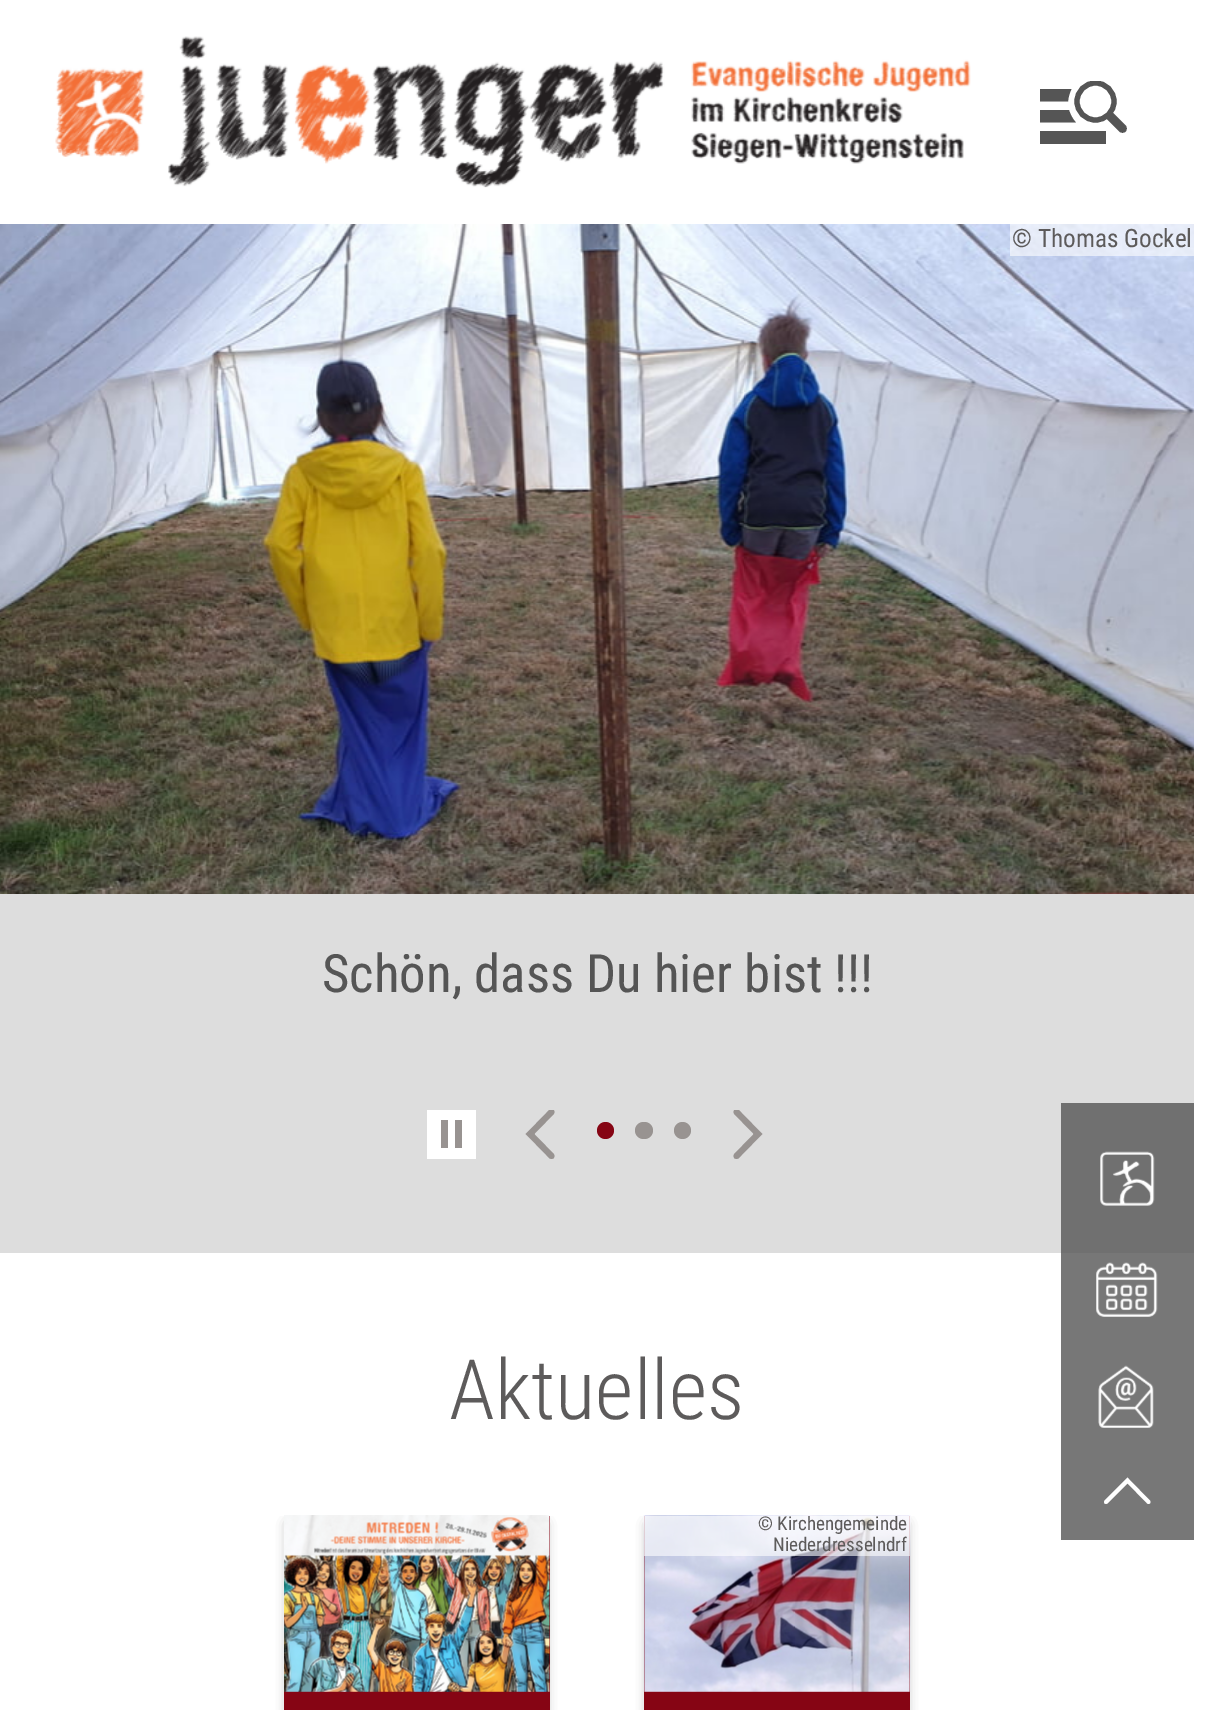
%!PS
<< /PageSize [1219 1710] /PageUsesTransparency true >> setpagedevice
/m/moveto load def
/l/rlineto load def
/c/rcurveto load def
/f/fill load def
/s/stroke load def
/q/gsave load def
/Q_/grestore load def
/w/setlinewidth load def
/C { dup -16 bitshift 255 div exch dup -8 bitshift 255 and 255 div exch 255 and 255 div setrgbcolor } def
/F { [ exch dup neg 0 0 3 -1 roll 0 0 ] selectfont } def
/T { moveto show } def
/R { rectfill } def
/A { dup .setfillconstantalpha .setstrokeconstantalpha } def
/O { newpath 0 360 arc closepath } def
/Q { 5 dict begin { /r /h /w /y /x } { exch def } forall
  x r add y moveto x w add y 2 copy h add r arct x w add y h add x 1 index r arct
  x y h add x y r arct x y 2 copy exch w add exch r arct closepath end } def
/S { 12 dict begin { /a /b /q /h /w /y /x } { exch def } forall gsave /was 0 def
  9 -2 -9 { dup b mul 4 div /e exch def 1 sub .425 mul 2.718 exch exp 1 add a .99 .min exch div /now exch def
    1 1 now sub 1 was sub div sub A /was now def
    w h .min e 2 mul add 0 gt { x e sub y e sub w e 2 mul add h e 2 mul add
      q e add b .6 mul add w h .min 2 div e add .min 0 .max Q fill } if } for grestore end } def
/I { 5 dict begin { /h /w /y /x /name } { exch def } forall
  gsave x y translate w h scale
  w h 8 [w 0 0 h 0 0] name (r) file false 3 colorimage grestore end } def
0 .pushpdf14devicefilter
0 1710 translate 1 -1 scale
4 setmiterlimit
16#FFFFFF C
0 0 1219 1710 R
16#777777 C
1061 1253 133 287 R
(1.rgb) 55 36 916 152 I
q
1040 81 87 63 rectclip
16#555555 C
5.2 w
1095.5 101.5 18.5 O s
1039.5 89 m 0 12.5 l 28.5 0 l .5 -4.5 1.5 -8.5 3.5 -12.5 c 1039.5 110 m 0 12.5 l 36.5 0 l -3 -3 -5.5 -7.5 -7 -12.5 c f
Q_
16#555555 C
8.8 w
1 setlinecap
1110.5 116.5 m 12 12 l s
1040 131 66 13 R
16#DDDDDD C
0 894 1194 359 R
16#707070 C
1061 1103 133 150 R
(2.rgb) 0 224 1194 670 I
0.6 A
16#FFFFFF C
1010 224 184 32 R
/RobotoCondensed-Regular 25.25 F
1 A
16#5D5B5B C
(© Thomas Gockel) 1012 247 T
/RobotoCondensed-Regular 52.9 F
16#555555 C
(Schön, dass Du hier bist !!!) 322 992 T
16#FFFFFF C
427 1110 49 49 R
16#989391 C
441 1120 7 28 R
455 1120 7 28 R
q
522 1110 33 49 rectclip
6.1 w
551.5 1156 m -21.5 -22 l 21.5 -22 l s
Q_
16#860514 C
605.5 1130.5 8.5 O f
16#989391 C
635 1122 18 17 8.5 Q f
682.5 1130.5 8.5 O f
q
733 1110 34 49 rectclip
6.1 w
736.5 1112 m 21.5 22 l -21.5 22 l s
Q_
/RobotoCondensed-Light 83.5 F
16#5D5B5B C
(Aktuelles) 449 1419 T
q
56 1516 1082 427 rectclip
16#888888 C
289 1524 255 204 0 6 1 S
Q_
16#860514 C
284 1516 266 194 R
(3.rgb) 284 1515 266 177 I
q
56 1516 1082 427 rectclip
16#888888 C
649 1524 256 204 0 6 1 S
Q_
644 1516 266 194 R
(4.rgb) 643 1515 268 177 I
0.6 A
16#FFFFFF C
644 1516 266 40 R
q
56 1516 1082 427 rectclip
/RobotoCondensed-Regular 19 F
1 A
16#5D5B5B C
(© Kirchengemeinde) 758 1530 T
Q_
/RobotoCondensed-Regular 19 F
1 A
16#5D5B5B C
(Niederdresselndrf) 773 1551 T
(5.rgb) 1100 1151 55 55 I
(6.rgb) 1096 1262 62 55 I
(7.rgb) 1098 1365 56 63 I
16#FFFFFF C
3.9 w
1106 1502 m 21.5 -21.5 l 21 21.5 l s
.poppdf14devicefilter showpage
